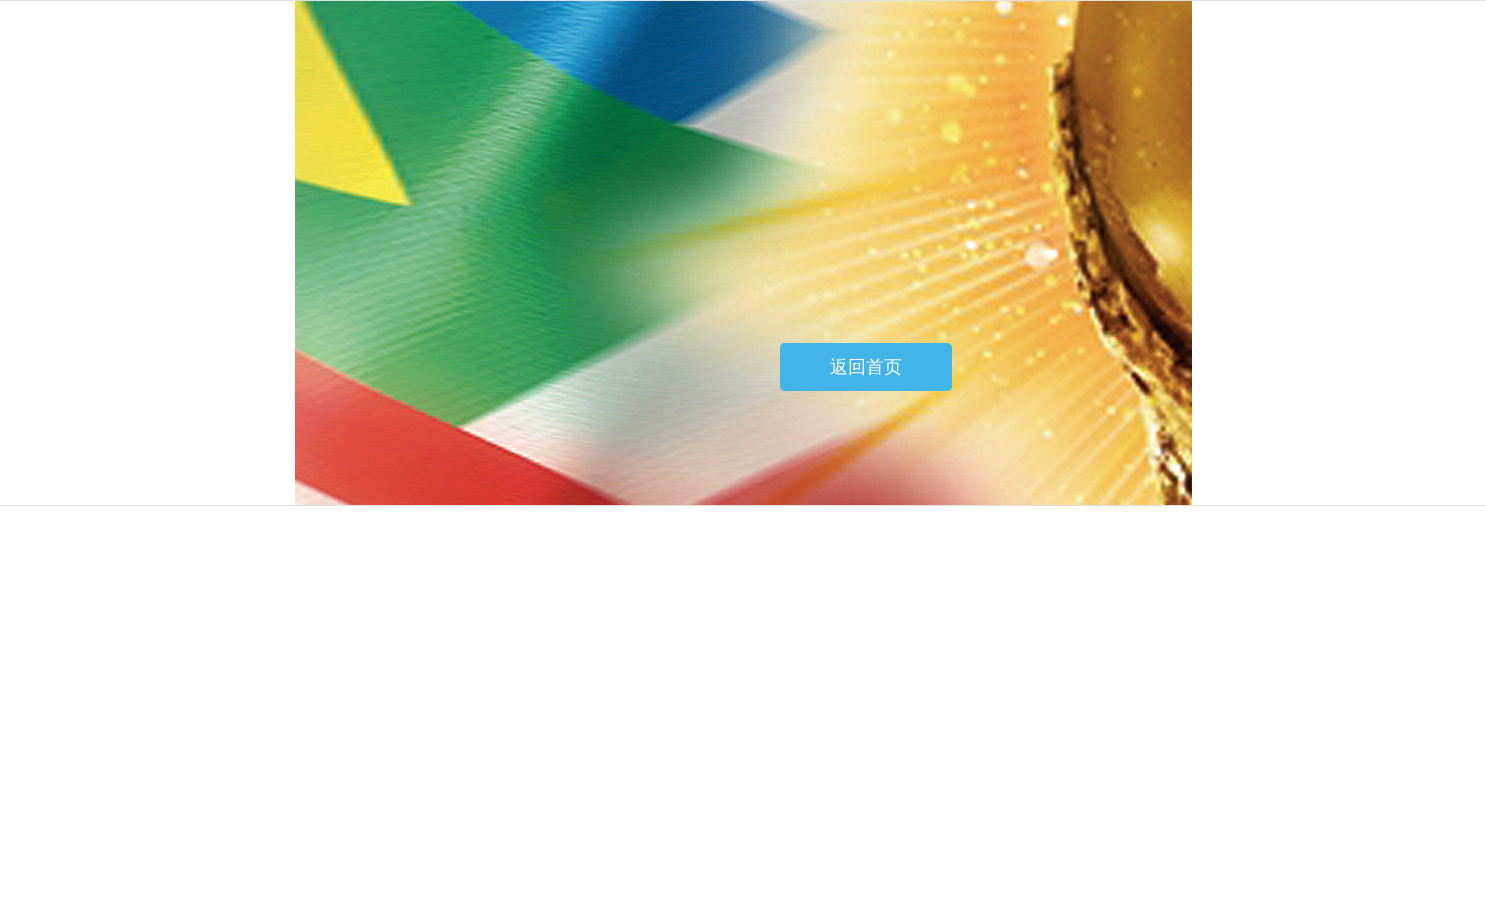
%!PS
<< /PageSize [1486 903] >> setpagedevice
/f/fill load def
/C { dup -16 bitshift 255 div exch dup -8 bitshift 255 and 255 div exch 255 and 255 div setrgbcolor } def
/F { [ exch dup neg 0 0 3 -1 roll 0 0 ] selectfont } def
/T { moveto show } def
/R { rectfill } def
/Q { 5 dict begin { /r /h /w /y /x } { exch def } forall
  x r add y moveto x w add y 2 copy h add r arct x w add y h add x 1 index r arct
  x y h add x y r arct x y 2 copy exch w add exch r arct closepath end } def
/I { 5 dict begin { /h /w /y /x /name } { exch def } forall
  gsave x y translate w h scale
  w h 8 [w 0 0 h 0 0] name (r) file false 3 colorimage grestore end } def
0 903 translate 1 -1 scale
4 setmiterlimit
16#FFFFFF C
0 0 1486 903 R
16#E0E0E0 C
0 0 1486 1 R
0 505 1486 1 R
(1.rgb) 295 1 897 504 I
16#43B4E8 C
780 343 172 48 5 Q f
/WenQuanYiZenHei-Medium 18 F
16#FFFFFF C
(返回首页) 830 373 T
showpage
